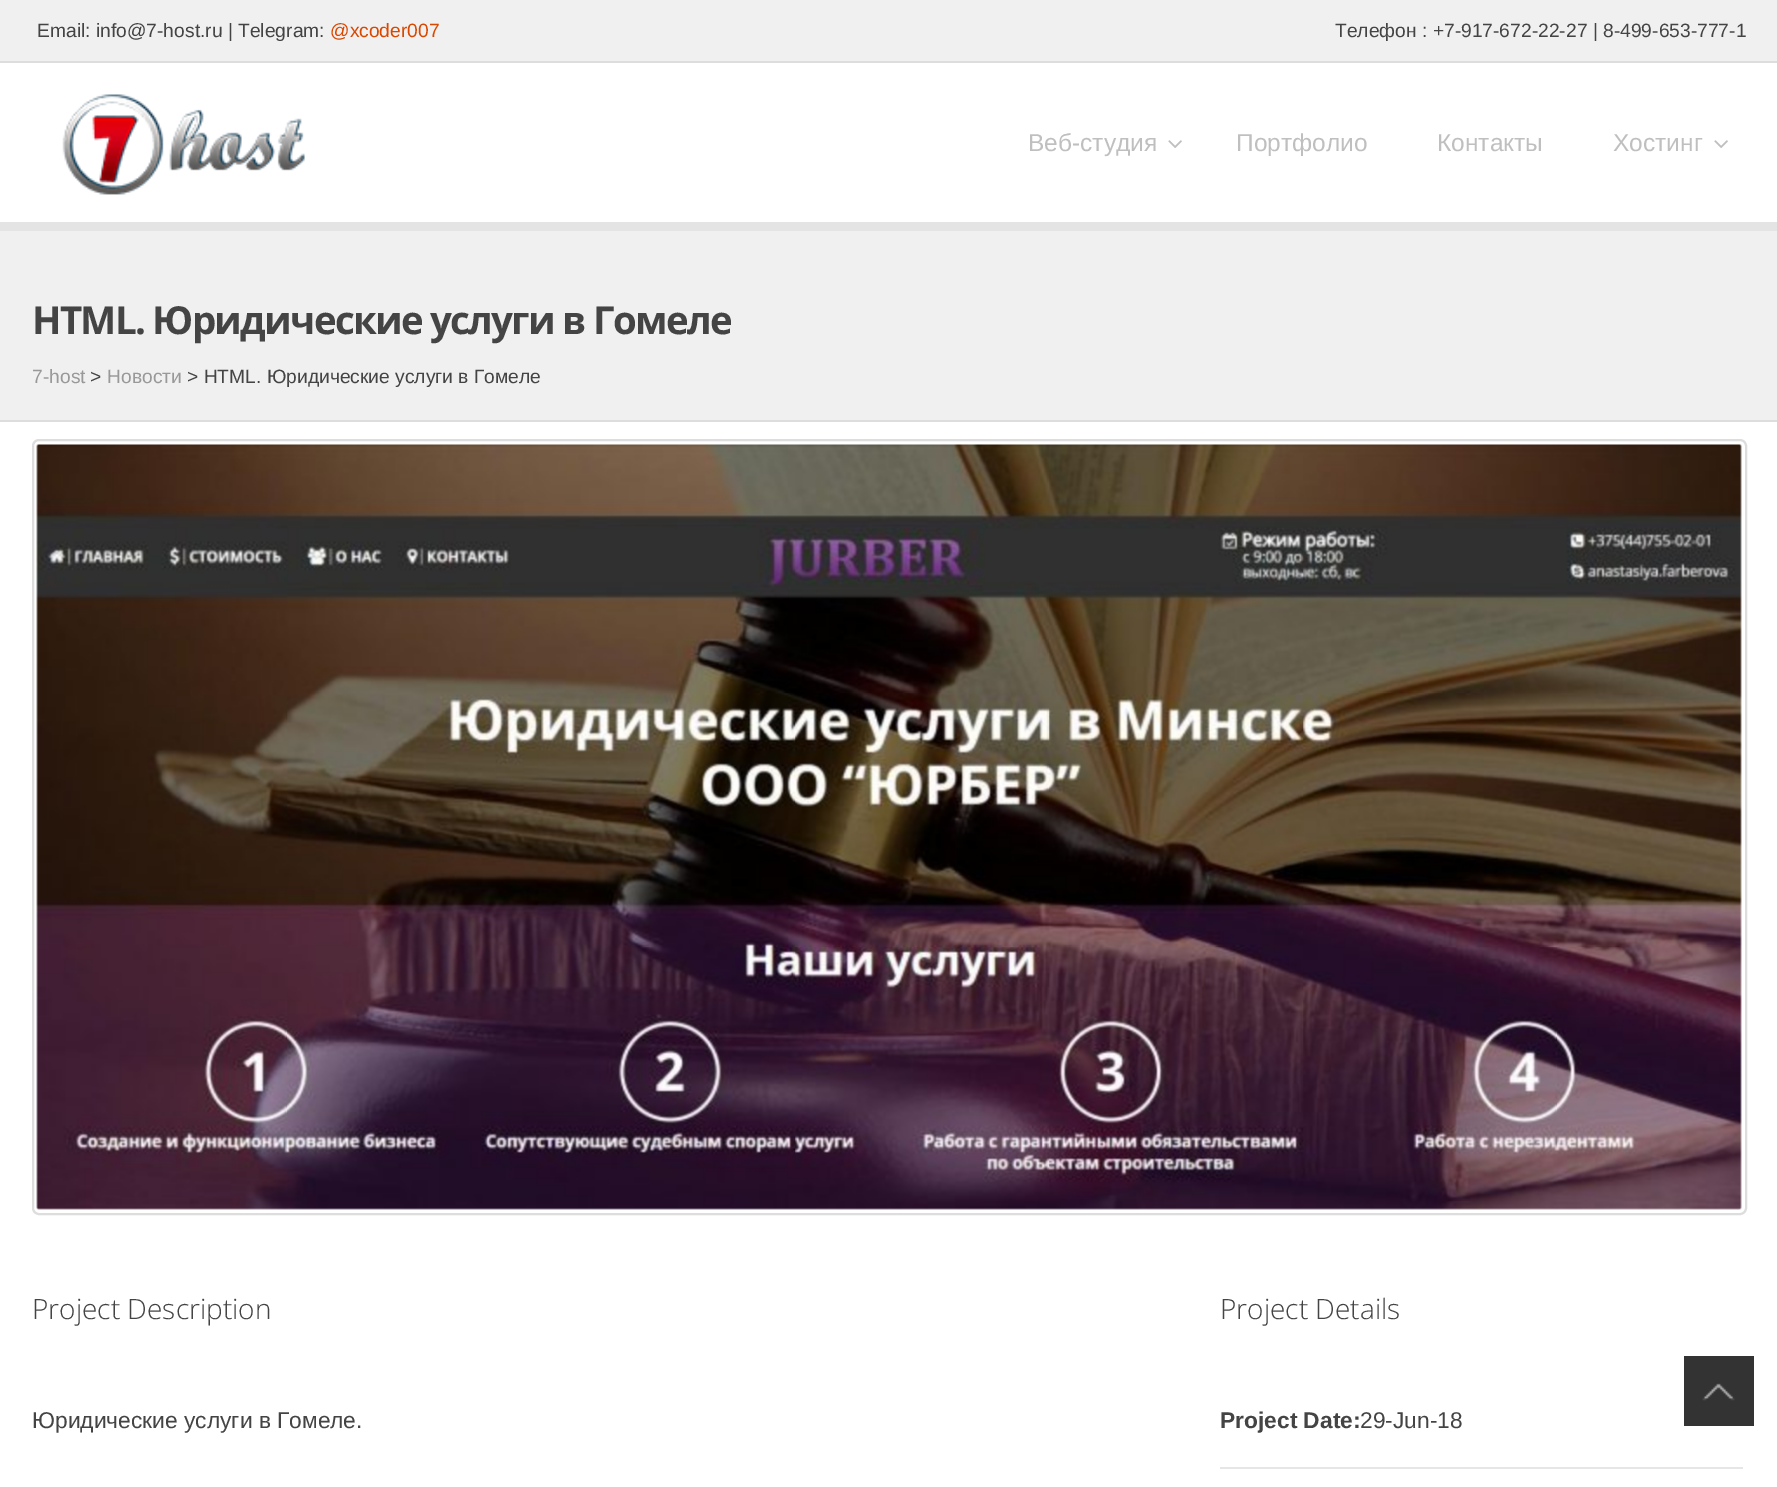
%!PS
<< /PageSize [1777 1487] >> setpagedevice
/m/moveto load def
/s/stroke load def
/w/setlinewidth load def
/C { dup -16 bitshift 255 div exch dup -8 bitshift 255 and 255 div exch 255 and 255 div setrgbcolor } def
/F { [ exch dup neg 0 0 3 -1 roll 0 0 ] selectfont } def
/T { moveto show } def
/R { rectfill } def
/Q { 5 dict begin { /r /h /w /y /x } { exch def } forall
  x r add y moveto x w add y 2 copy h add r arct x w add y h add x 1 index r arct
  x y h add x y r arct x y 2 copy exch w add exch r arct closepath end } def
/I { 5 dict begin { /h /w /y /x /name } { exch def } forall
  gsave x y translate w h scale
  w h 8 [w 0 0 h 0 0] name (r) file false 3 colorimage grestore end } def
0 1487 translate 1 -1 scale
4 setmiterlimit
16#FFFFFF C
0 0 1777 1487 R
16#E4E4E4 C
0 222 1777 9 R
16#F0F0F0 C
0 0 1777 61 R
16#DDDDDD C
0 61 1777 2 R
/LiberationSans-Regular 19.25 F
16#444444 C
(Email: info@7-host.ru | Telegram:) 37 37 T
16#D94800 C
(@xcoder007) 330 37 T
16#444444 C
(Телефон : +7-917-672-22-27 | 8-499-653-777-1) 1335 37 T
(1.rgb) 62 94 243 101 I
/LiberationSans-Regular 24.5 F
16#BFBFBF C
(Веб-студия) 1028 151 T
(2.rgb) 1168 140 14 8 I
(Портфолио) 1236 151 T
(Контакты) 1437 151 T
(Хостинг) 1613 151 T
(2.rgb) 1714 140 14 8 I
16#F0F0F0 C
0 231 1777 189 R
16#DDDDDD C
0 420 1777 2 R
/OpenSans-Bold 38.5 F
16#444444 C
32 334 m -1.75 0 (HTML. Юридические услуги в Гомеле) ashow
/LiberationSans-Regular 19.25 F
16#999999 C
(7-host) 32 383 T
16#444444 C
(>) 90 383 T
16#999999 C
(Новости) 107 383 T
16#444444 C
(> HTML. Юридические услуги в Гомеле) 187 383 T
16#DDDDDD C
2 w
33 440 1713 774 6 Q s
(3.rgb) 36 444 1706 766 I
/OpenSans-Light 28 F
16#444444 C
(Project Description) 32 1319 T
/LiberationSans-Regular 22.75 F
(Юридические услуги в Гомеле.) 32 1428 T
/OpenSans-Light 28 F
(Project Details) 1220 1319 T
16#E7E6E6 C
1220 1467 523 2 R
/LiberationSans-Bold 22.75 F
16#444444 C
(Project Date:) 1220 1428 T
/LiberationSans-Regular 22.75 F
(29-Jun-18) 1360 1428 T
16#333333 C
1684 1356 70 70 R
(4.rgb) 1702 1383 33 18 I
showpage
